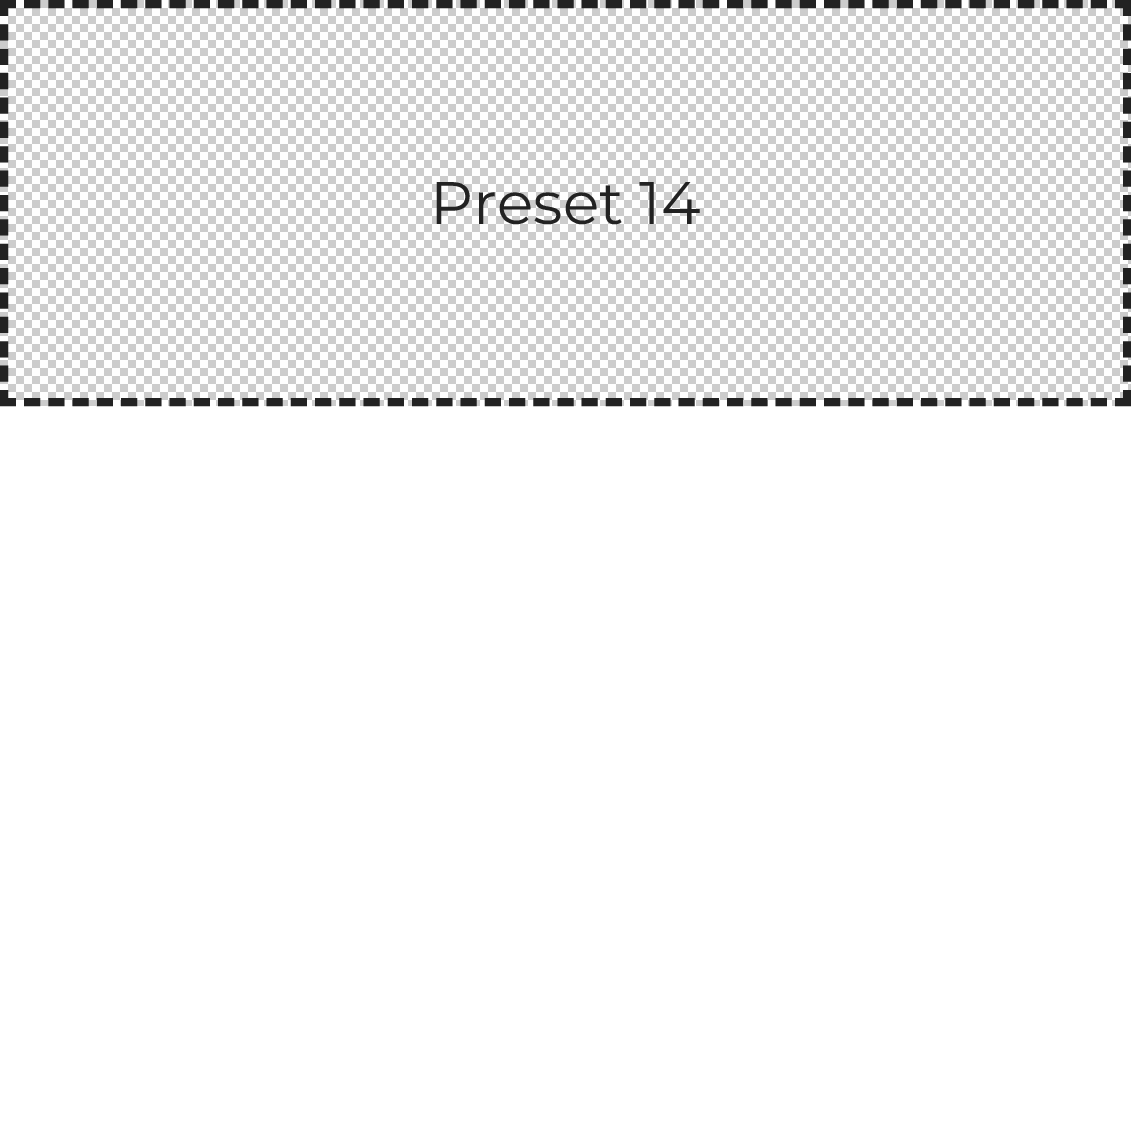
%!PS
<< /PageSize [1131 1148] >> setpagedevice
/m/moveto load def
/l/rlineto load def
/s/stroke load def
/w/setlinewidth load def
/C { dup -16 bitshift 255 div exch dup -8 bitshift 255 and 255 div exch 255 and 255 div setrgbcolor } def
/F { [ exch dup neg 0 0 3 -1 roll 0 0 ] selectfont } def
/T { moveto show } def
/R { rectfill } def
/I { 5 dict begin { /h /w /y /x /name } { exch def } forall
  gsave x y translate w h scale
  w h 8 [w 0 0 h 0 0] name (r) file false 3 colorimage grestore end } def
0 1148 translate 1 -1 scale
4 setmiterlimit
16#FFFFFF C
0 0 1131 1148 R
(1.rgb) 0 0 1131 406 I
16#222222 C
8 w
[16 8.24] 0 setdash
0 4 m 1131 0 l s
[16 8.38] 0 setdash
1127 0 m 0 406 l s
[16 8.24] 0 setdash
0 402 m 1131 0 l s
[16 8.38] 0 setdash
4 0 m 0 406 l s
/Montserrat-Regular 60 F
(Preset 14) 430 224 T
showpage
